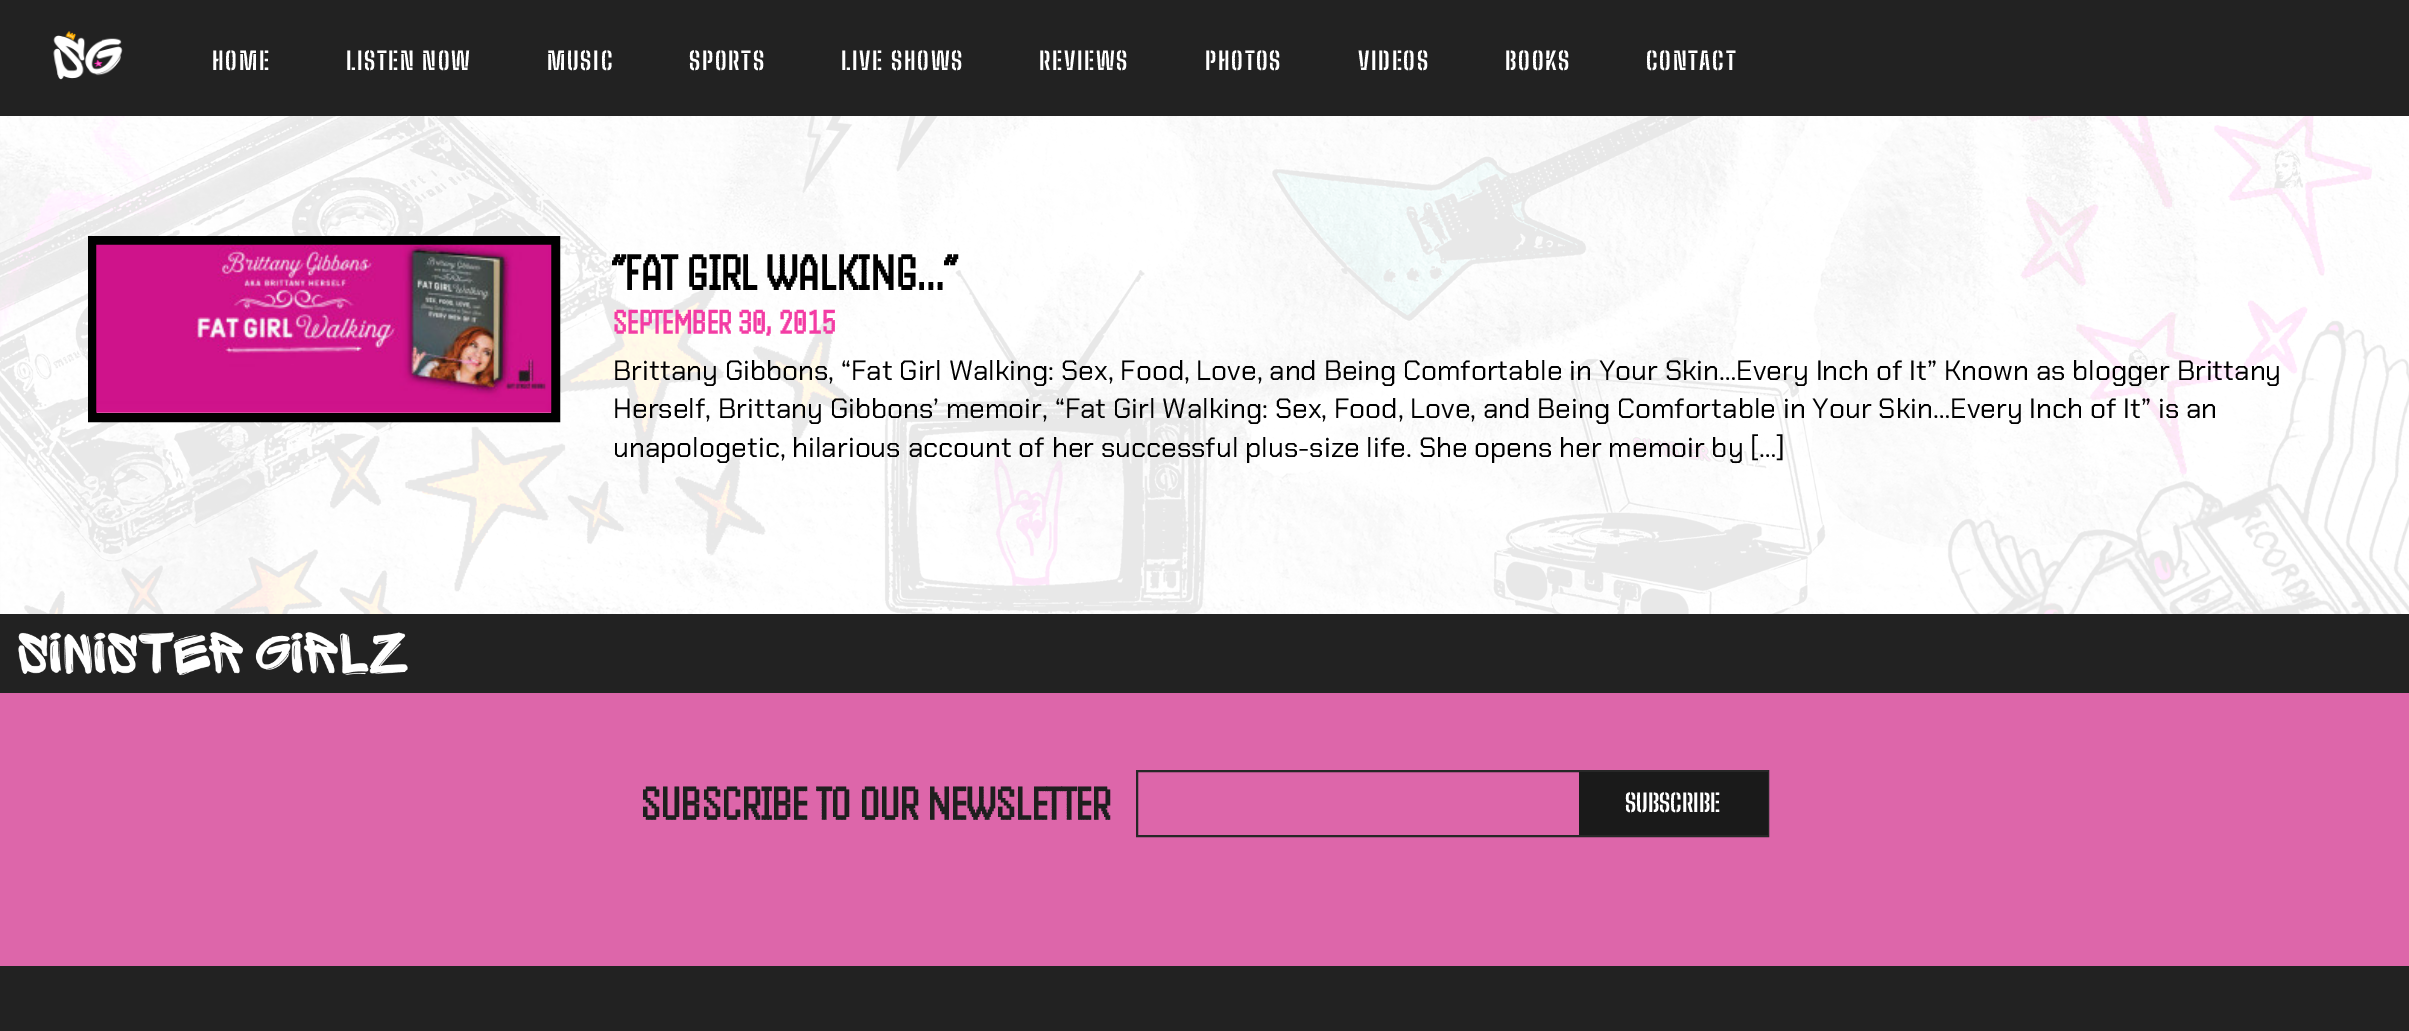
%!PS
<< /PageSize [2409 1031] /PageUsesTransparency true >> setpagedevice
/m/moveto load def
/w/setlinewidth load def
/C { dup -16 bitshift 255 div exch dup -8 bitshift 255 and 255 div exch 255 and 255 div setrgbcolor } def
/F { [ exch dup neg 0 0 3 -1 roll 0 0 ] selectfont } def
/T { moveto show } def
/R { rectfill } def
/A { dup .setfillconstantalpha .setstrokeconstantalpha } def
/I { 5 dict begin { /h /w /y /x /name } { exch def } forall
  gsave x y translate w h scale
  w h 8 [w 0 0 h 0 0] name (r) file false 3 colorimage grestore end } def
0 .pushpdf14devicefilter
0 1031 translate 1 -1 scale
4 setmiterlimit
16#FFFFFF C
0 0 2409 1031 R
(1.rgb) 0 116 2409 498 I
16#222222 C
0 0 2409 116 R
(2.rgb) 53 31 70 49 I
/BigShouldersStencil-Thin 24.5 F
16#FFFFFF C
212 70 m 1.75 0 (HOME) ashow
346 70 m 1.75 0 (LISTEN NOW) ashow
547 70 m 1.75 0 (MUSIC) ashow
689 70 m 1.75 0 (SPORTS) ashow
841 70 m 1.75 0 (LIVE SHOWS) ashow
1039 70 m 1.75 0 (REVIEWS) ashow
1205 70 m 1.75 0 (PHOTOS) ashow
1358 70 m 1.75 0 (VIDEOS) ashow
1505 70 m 1.75 0 (BOOKS) ashow
1646 70 m 1.75 0 (CONTACT) ashow
0.91 A
0 116 2409 498 R
1 A
16#000000 C
9 w
92.5 240.5 463 177 rectstroke
(3.rgb) 96 244 456 169 I
/Handjet-Bold 52.5 F
(“FAT GIRL WALKING…”) 613 289 T
/Handjet-Bold 35 F
16#F33CA4 C
(SEPTEMBER 30, 2015) 613 333 T
/ChakraPetch-Regular 28 F
16#000000 C
(Brittany Gibbons, “Fat Girl Walking: Sex, Food, Love, and Being Comfortable in Your Skin…Every Inch of It” Known as blogger Brittany) 613 380 T
(Herself, Brittany Gibbons’ memoir, “Fat Girl Walking: Sex, Food, Love, and Being Comfortable in Your Skin…Every Inch of It” is an) 613 418 T
(unapologetic, hilarious account of her successful plus-size life. She opens her memoir by […]) 613 457 T
16#222222 C
0 614 2409 417 R
(4.rgb) 18 632 390 44 I
16#DD66AA C
0 693 2409 273 R
/Handjet-Bold 49 F
16#1F1F1F C
(SUBSCRIBE TO OUR NEWSLETTER) 641 819 T
16#272727 C
2 w
1137 771 631 65 rectstroke
16#1A1A1A C
1579 772 189 63 R
/BigShouldersStencil-Thin 24.5 F
16#FFFFFF C
(SUBSCRIBE) 1625 812 T
.poppdf14devicefilter showpage
